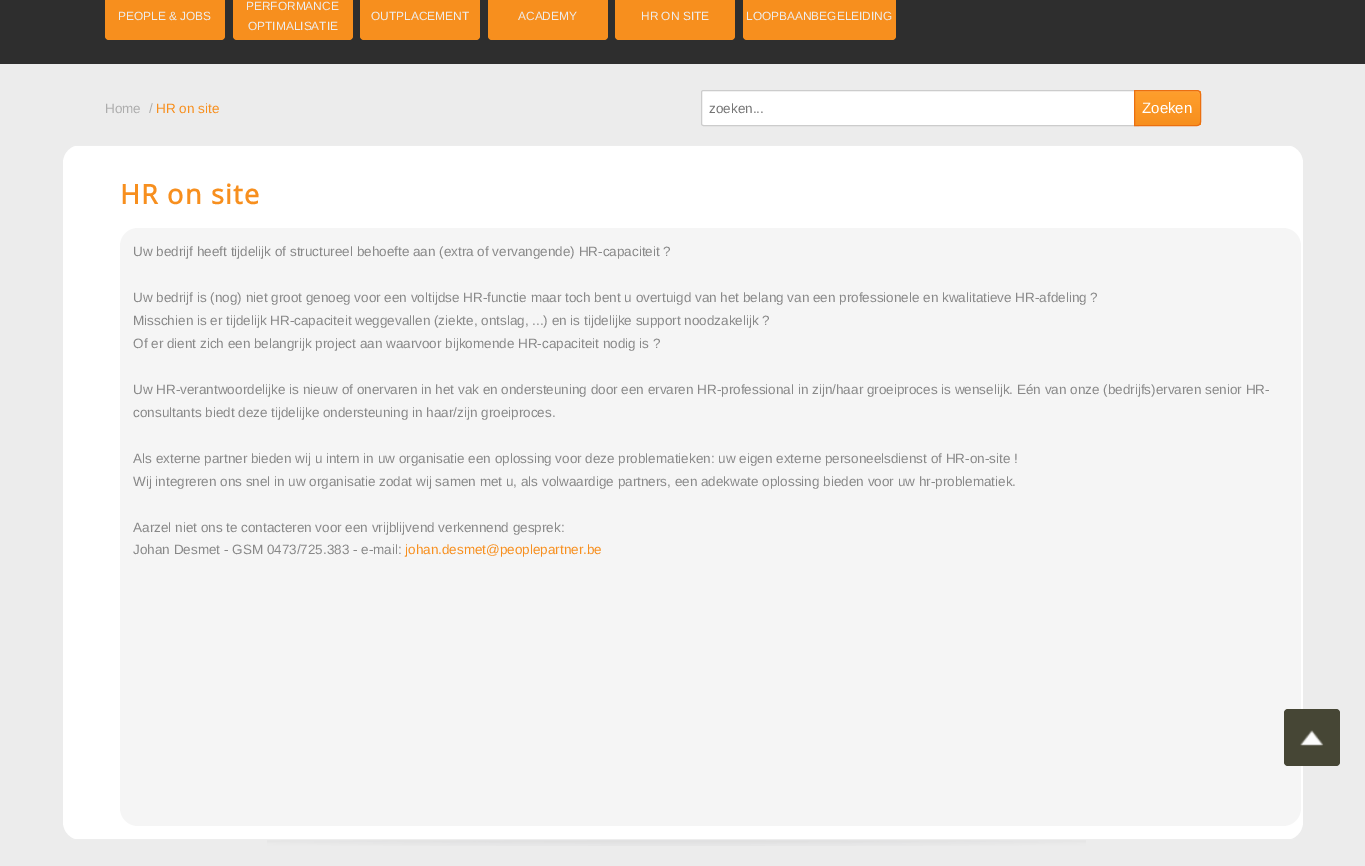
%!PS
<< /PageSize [1365 866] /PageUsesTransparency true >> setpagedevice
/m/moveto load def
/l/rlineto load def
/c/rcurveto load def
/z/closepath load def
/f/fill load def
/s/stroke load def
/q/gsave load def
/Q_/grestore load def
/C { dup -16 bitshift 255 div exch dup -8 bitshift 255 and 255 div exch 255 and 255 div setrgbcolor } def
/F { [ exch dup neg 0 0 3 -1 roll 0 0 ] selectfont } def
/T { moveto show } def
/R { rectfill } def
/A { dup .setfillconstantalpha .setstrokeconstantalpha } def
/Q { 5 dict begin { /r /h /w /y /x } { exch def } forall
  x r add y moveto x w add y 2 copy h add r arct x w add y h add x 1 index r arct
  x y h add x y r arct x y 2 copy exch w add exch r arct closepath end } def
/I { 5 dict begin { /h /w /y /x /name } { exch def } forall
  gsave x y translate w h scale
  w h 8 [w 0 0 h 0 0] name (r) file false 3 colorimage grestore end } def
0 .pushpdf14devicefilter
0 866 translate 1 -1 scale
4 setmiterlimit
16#ECECEC C
0 0 1365 866 R
16#2E2E2E C
0 0 1365 64 R
16#F78F1E C
105 -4 120 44 4 Q f
/LiberationSans-Regular 11.9 F
16#EDEDED C
(PEOPLE & JOBS) 118 20 T
16#F78F1E C
233 -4 120 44 4 Q f
16#EDEDED C
(PERFORMANCE) 246 10 T
(OPTIMALISATIE) 248 30 T
16#F78F1E C
360 -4 120 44 4 Q f
16#EDEDED C
(OUTPLACEMENT) 371 20 T
16#F78F1E C
488 -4 120 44 4 Q f
16#EDEDED C
(ACADEMY) 518 20 T
16#F78F1E C
615 -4 120 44 4 Q f
16#EDEDED C
(HR ON SITE) 641 20 T
16#F78F1E C
743 -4 153 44 4 Q f
16#EDEDED C
(LOOPBAANBEGELEIDING) 746 20 T
/LiberationSans-Regular 13.5 F
16#ADADAD C
(Home) 105 113 T
(/) 149 113 T
16#F78F1E C
(HR on site) 156 113 T
16#FFFFFF C
701.5 90.5 439 35 2 Q q f Q_
16#CCCCCC C
s
16#757575 C
(zoeken...) 709 113 T
q
1134 90 m 63 0 l 2 0 4 2 4 4 c 0 28 l 0 2 -2 4 -4 4 c -63 0 l z clip newpath
q 1135 91 m 66 0 l 0 34 l -66 0 l z clip newpath
<< /ShadingType 2 /ColorSpace /DeviceRGB /Coords [1135 91 1135 125] /Extend [true true] /Function << /FunctionType 3 /Domain [0 1] /Functions [<< /FunctionType 2 /Domain [0 1] /C0 [.996 .62 .173] /C1 [.996 .62 .173] /N 1 >> << /FunctionType 2 /Domain [0 1] /C0 [.996 .62 .173] /C1 [.969 .561 .118] /N 1 >>] /Bounds [.05] /Encode [0 1 0 1] >> >> shfill Q_
Q_
16#FEA63E C
1135 92 m 42 0 l 14 0 20 -1 22 1 c 1 0 1 1 1 3 c 0 -2 l 0 -2 -1 -3 -2 -3 c -63 0 l z 1200 122 m 0 1 l z eofill
16#EB6F10 C
1134.5 90.5 m 62.5 0 l 2 0 3.5 1.5 3.5 3.5 c 0 28 l 0 2 -1.5 3.5 -3.5 3.5 c -62.5 0 l z s
/LiberationSans-Regular 15 F
16#FFFFFF C
(Zoeken) 1142 113 T
63 145 1240 695 18 Q f
16#EDEDED C
71 145 1223 1 R
71 839 1223 1 R
/OpenSans-Bold 27 F
16#F78F1E C
120 204 m 1.25 0 (HR on site) ashow
16#F5F5F5 C
120 228 1181 598 18 Q f
/LiberationSans-Regular 13.5 F
16#888888 C
(Uw bedrijf heeft tijdelijk of structureel behoefte aan \(extra of vervangende\) HR-capaciteit ?) 133 256 T
(Uw bedrijf is \(nog\) niet groot genoeg voor een voltijdse HR-functie maar toch bent u overtuigd van het belang van een professionele en kwalitatieve HR-afdeling ?) 133 302 T
(Misschien is er tijdelijk HR-capaciteit weggevallen \(ziekte, ontslag, ...\) en is tijdelijke support noodzakelijk ?) 133 325 T
(Of er dient zich een belangrijk project aan waarvoor bijkomende HR-capaciteit nodig is ?) 133 348 T
(Uw HR-verantwoordelijke is nieuw of onervaren in het vak en ondersteuning door een ervaren HR-professional in zijn/haar groeiproces is wenselijk. Eén van onze \(bedrijfs\)ervaren senior HR-) 133 394 T
(consultants biedt deze tijdelijke ondersteuning in haar/zijn groeiproces.) 133 417 T
(Als externe partner bieden wij u intern in uw organisatie een oplossing voor deze problematieken: uw eigen externe personeelsdienst of HR-on-site !) 133 463 T
(Wij integreren ons snel in uw organisatie zodat wij samen met u, als volwaardige partners, een adekwate oplossing bieden voor uw hr-problematiek.) 133 486 T
(Aarzel niet ons te contacteren voor een vrijblijvend verkennend gesprek:) 133 532 T
(Johan Desmet - GSM 0473/725.383 - e-mail:) 133 554 T
16#F78F1E C
(johan.desmet@peoplepartner.be) 405 554 T
(1.rgb) 267 840 819 6 I
0.99 A
16#444433 C
1284 709 56 57 4 Q f
1 A
(2.rgb) 1300 730 24 16 I
.poppdf14devicefilter showpage
